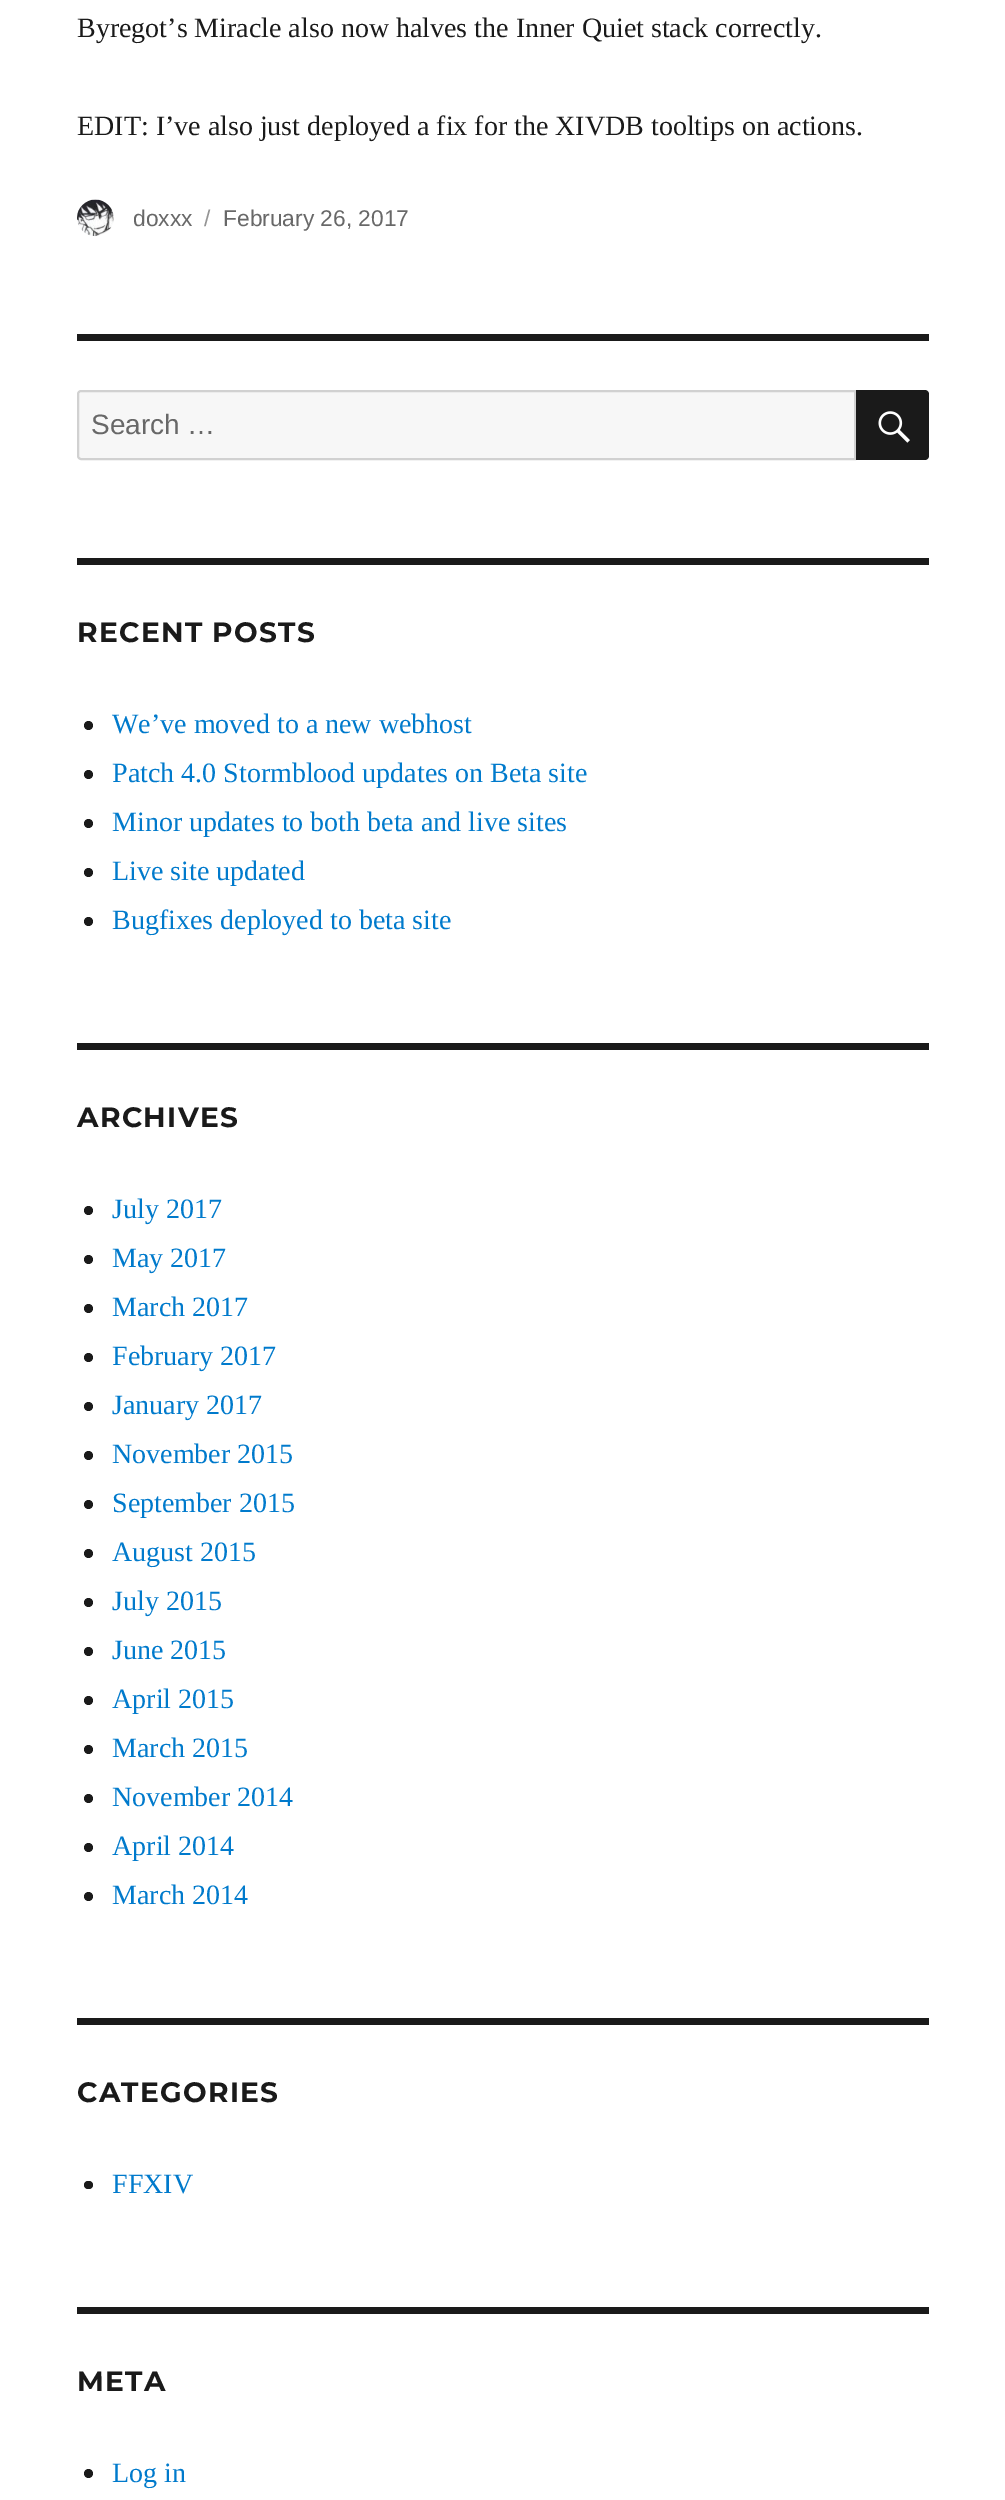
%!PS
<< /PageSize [1005 2500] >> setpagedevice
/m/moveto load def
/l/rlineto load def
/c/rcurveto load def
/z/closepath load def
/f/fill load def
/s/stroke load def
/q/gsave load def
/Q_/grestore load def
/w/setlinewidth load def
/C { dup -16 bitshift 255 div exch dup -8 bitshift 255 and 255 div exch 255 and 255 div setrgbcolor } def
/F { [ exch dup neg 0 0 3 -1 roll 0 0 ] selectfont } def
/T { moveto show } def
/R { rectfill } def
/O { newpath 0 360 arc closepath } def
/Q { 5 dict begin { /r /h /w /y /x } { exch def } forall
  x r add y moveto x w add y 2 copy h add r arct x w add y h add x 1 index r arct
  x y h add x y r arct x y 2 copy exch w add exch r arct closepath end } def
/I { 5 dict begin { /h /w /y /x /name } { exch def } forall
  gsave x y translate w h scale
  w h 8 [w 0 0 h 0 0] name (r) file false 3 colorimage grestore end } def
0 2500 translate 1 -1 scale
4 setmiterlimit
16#FFFFFF C
0 0 1005 2500 R
/LiberationSerif-Regular 28 F
16#1A1A1A C
(Byregot’s Miracle also now halves the Inner Quiet stack correctly.) 77 37 T
(EDIT: I’ve also just deployed a fix for the XIVDB tooltips on actions.) 77 135 T
(1.rgb) 77 199 37 38 I
/LiberationSans-Regular 22.75 F
16#686868 C
(doxxx) 133 226 T
16#959595 C
(/) 204 226 T
16#686868 C
(February 26, 2017) 223 226 T
16#1A1A1A C
77 334 852 7 R
16#F7F7F7 C
81 391 m 774 0 l 0 68 l -774 0 l -1.5 0 -3 -1.5 -3 -3 c 0 -62 l 0 -1.5 1.5 -3 3 -3 c z q f Q_
16#D1D1D1 C
2 w
s
/LiberationSans-Regular 28 F
16#686868 C
(Search …) 91 434 T
16#1A1A1A C
856 390 m 69 0 l 2 0 4 2 4 4 c 0 62 l 0 2 -2 4 -4 4 c -69 0 l z f
(2.rgb) 878 411 32 32 I
77 558 852 7 R
/Montserrat-Thin 28 F
77 642 m 1.25 0 (RECENT POSTS) ashow
88.5 725.5 4.5 O f
/LiberationSerif-Regular 28 F
16#007ACC C
(We’ve moved to a new webhost) 112 733 T
16#1A1A1A C
88.5 774.5 4.5 O f
16#007ACC C
(Patch 4.0 Stormblood updates on Beta site) 112 782 T
16#1A1A1A C
88.5 823.5 4.5 O f
16#007ACC C
(Minor updates to both beta and live sites) 112 831 T
16#1A1A1A C
88.5 872.5 4.5 O f
16#007ACC C
(Live site updated) 112 880 T
16#1A1A1A C
88.5 921.5 4.5 O f
16#007ACC C
(Bugfixes deployed to beta site) 112 929 T
16#1A1A1A C
77 1043 852 7 R
/Montserrat-Thin 28 F
77 1127 m 1.25 0 (ARCHIVES) ashow
88.5 1210.5 4.5 O f
/LiberationSerif-Regular 28 F
16#007ACC C
(July 2017) 112 1218 T
16#1A1A1A C
88.5 1259.5 4.5 O f
16#007ACC C
(May 2017) 112 1267 T
16#1A1A1A C
88.5 1308.5 4.5 O f
16#007ACC C
(March 2017) 112 1316 T
16#1A1A1A C
88.5 1357.5 4.5 O f
16#007ACC C
(February 2017) 112 1365 T
16#1A1A1A C
88.5 1406.5 4.5 O f
16#007ACC C
(January 2017) 112 1414 T
16#1A1A1A C
88.5 1455.5 4.5 O f
16#007ACC C
(November 2015) 112 1463 T
16#1A1A1A C
88.5 1504.5 4.5 O f
16#007ACC C
(September 2015) 112 1512 T
16#1A1A1A C
88.5 1553.5 4.5 O f
16#007ACC C
(August 2015) 112 1561 T
16#1A1A1A C
88.5 1602.5 4.5 O f
16#007ACC C
(July 2015) 112 1610 T
16#1A1A1A C
88.5 1651.5 4.5 O f
16#007ACC C
(June 2015) 112 1659 T
16#1A1A1A C
88.5 1700.5 4.5 O f
16#007ACC C
(April 2015) 112 1708 T
16#1A1A1A C
88.5 1749.5 4.5 O f
16#007ACC C
(March 2015) 112 1757 T
16#1A1A1A C
88.5 1798.5 4.5 O f
16#007ACC C
(November 2014) 112 1806 T
16#1A1A1A C
88.5 1847.5 4.5 O f
16#007ACC C
(April 2014) 112 1855 T
16#1A1A1A C
88.5 1896.5 4.5 O f
16#007ACC C
(March 2014) 112 1904 T
16#1A1A1A C
77 2018 852 7 R
/Montserrat-Thin 28 F
77 2102 m 1.25 0 (CATEGORIES) ashow
84 2181 9 8 4 Q f
/LiberationSerif-Regular 28 F
16#007ACC C
(FFXIV) 112 2193 T
16#1A1A1A C
77 2307 852 7 R
/Montserrat-Thin 28 F
77 2391 m 1.25 0 (META) ashow
88.5 2473.5 4.5 O f
/LiberationSerif-Regular 28 F
16#007ACC C
(Log in) 112 2482 T
showpage
